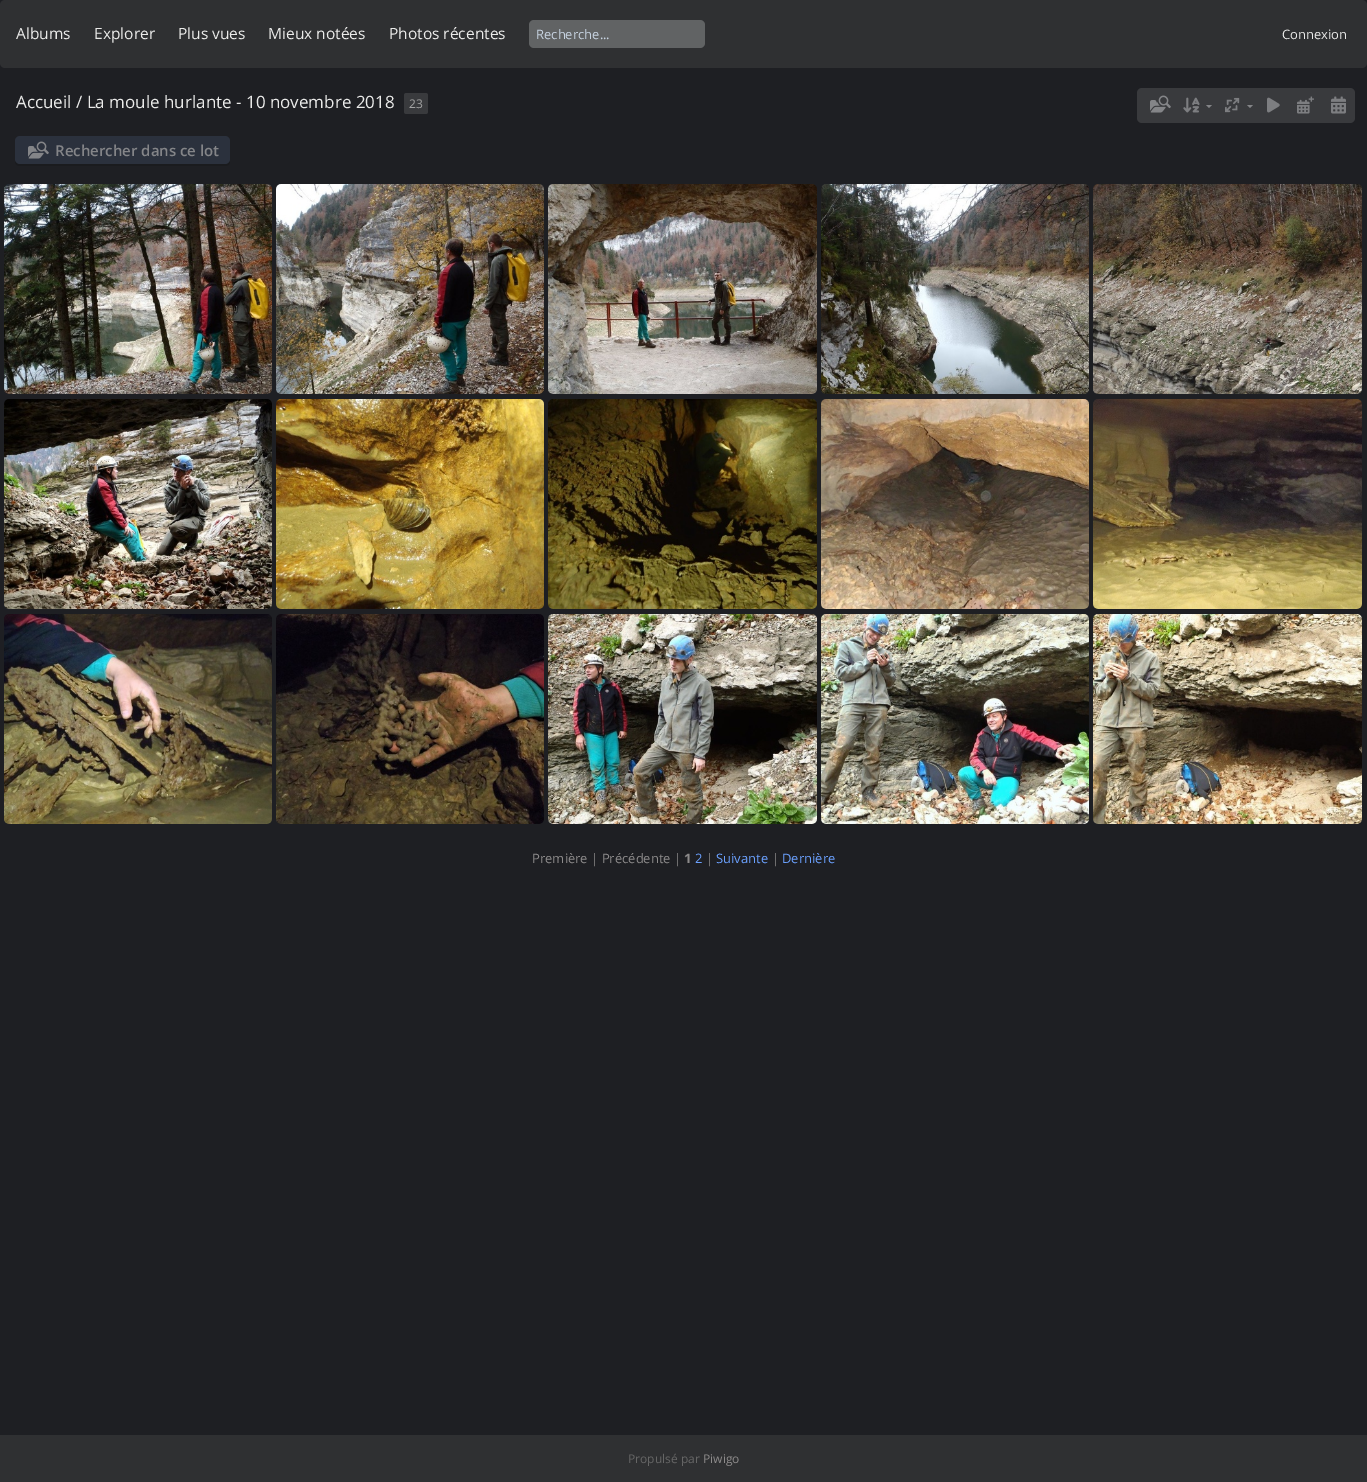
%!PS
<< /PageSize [1367 1482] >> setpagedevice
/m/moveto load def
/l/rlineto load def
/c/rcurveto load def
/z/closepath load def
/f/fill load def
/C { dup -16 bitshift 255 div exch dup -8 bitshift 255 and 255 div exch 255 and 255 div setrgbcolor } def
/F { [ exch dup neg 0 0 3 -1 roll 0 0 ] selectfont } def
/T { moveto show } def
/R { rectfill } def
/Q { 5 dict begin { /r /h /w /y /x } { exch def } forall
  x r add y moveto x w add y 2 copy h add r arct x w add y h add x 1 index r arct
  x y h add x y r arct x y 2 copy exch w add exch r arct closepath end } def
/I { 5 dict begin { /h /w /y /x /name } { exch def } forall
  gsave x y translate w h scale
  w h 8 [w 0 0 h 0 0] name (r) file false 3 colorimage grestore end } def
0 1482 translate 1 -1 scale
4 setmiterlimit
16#1E1F23 C
0 0 1367 1482 R
16#2F3032 C
0 0 1367 68 5 Q f
/OpenSans-Regular 15.5 F
16#EAEAE9 C
(Albums) 16 39 T
(Explorer) 94 39 T
(Plus vues) 178 39 T
(Mieux notées) 268 39 T
(Photos récentes) 389 39 T
16#616364 C
529 20 176 28 5 Q f
/OpenSans-Regular 13 F
16#C7D3E1 C
(Recherche...) 536 39 T
16#EAEAE9 C
(Connexion) 1282 39 T
/OpenSans-Regular 17 F
(Accueil / La moule hurlante - 10 novembre 2018) 16 108 T
16#393A3D C
409 93 14 21 R
/OpenSans-Regular 12 F
16#A4A4A4 C
(23) 409 108 T
16#393A3D C
406.5 93 m 2.5 0 l 0 21 l -2.5 0 l -1.5 0 -2.5 -1 -2.5 -2.5 c 0 -16 l 0 -1.5 1 -2.5 2.5 -2.5 c z f
423 93 m 2.5 0 l 1.5 0 2.5 1 2.5 2.5 c 0 16 l 0 1.5 -1 2.5 -2.5 2.5 c -2.5 0 l z f
1137 88 218 35 5 Q f
(1.rgb) 1150 95 21 18 I
(2.rgb) 1183 97 17 16 I
16#848588 C
1206 105 m 6 0 l -3 3 l z 1247 105 m 6 0 l -3 3 l z f
(3.rgb) 1297 96 17 18 I
(4.rgb) 1331 96 15 18 I
(5.rgb) 1225 97 15 16 I
(6.rgb) 1267 97 13 16 I
16#1A1B1E C
15 159 m 0 2 l 0 3 2 5 5 5 c 205 0 l 3 0 5 -2 5 -5 c 0 -2 l 0 3 -2 5 -5 5 c -205 0 l -3 0 -5 -2 -5 -5 c z f
16#2B313D C
15 136 215 28 5 Q f
(7.rgb) 28 141 21 18 I
/OpenSans-SemiBold 15 F
16#848588 C
(Rechercher dans ce lot) 55 156 T
(8.rgb) 4 184 268 210 I
(9.rgb) 276 184 268 210 I
(10.rgb) 548 184 269 210 I
(11.rgb) 821 184 268 210 I
(12.rgb) 1093 184 269 210 I
(13.rgb) 4 399 268 210 I
(14.rgb) 276 399 268 210 I
(15.rgb) 548 399 269 210 I
(16.rgb) 821 399 268 210 I
(17.rgb) 1093 399 269 210 I
(18.rgb) 4 614 268 210 I
(19.rgb) 276 614 268 210 I
(20.rgb) 548 614 269 210 I
(21.rgb) 821 614 268 210 I
(22.rgb) 1093 614 269 210 I
/OpenSans-Regular 13 F
16#8D8B8B C
(Première | Précédente |) 532 863 T
/OpenSans-Bold 13 F
(1) 684 863 T
/OpenSans-Regular 13 F
16#6BA1FF C
(2) 695 863 T
16#8D8B8B C
(|) 706 863 T
16#6BA1FF C
(Suivante) 716 863 T
16#8D8B8B C
(|) 772 863 T
16#6BA1FF C
(Dernière) 782 863 T
16#2F3032 C
0 1435 1367 47 R
/OpenSans-Regular 12 F
16#666666 C
(Propulsé par) 628 1463 T
16#8D8B8B C
(Piwigo) 703 1463 T
showpage
